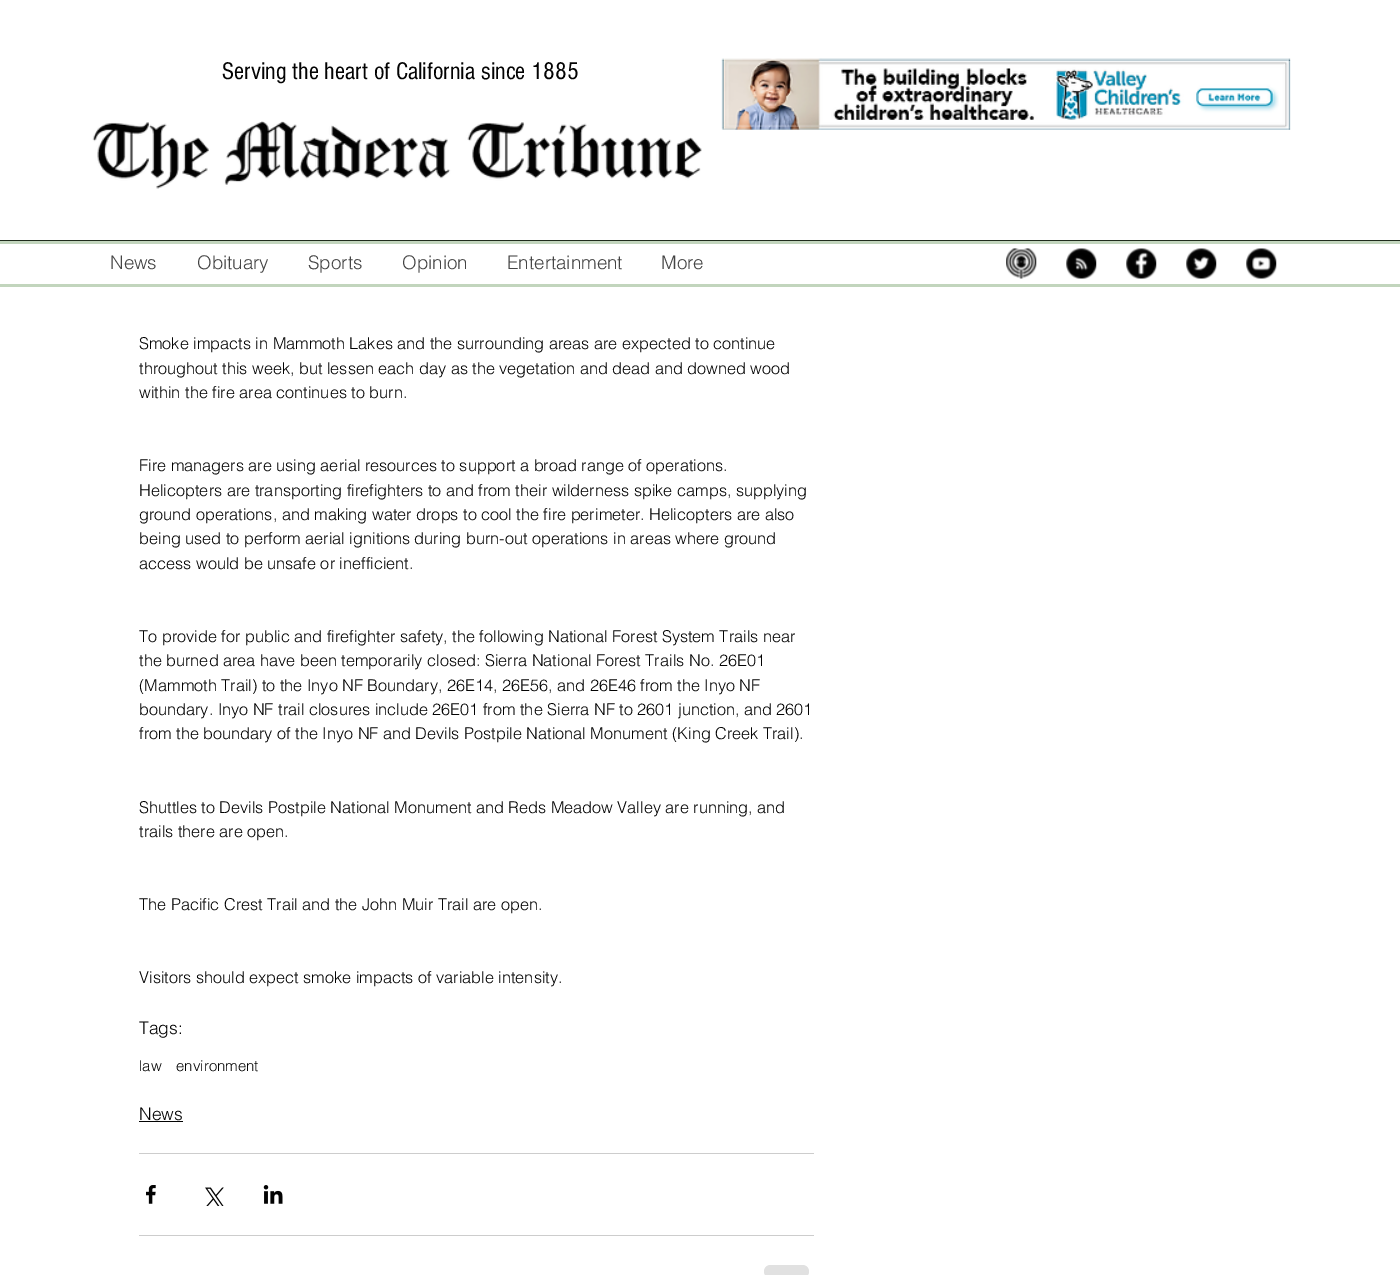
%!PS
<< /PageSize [1400 1275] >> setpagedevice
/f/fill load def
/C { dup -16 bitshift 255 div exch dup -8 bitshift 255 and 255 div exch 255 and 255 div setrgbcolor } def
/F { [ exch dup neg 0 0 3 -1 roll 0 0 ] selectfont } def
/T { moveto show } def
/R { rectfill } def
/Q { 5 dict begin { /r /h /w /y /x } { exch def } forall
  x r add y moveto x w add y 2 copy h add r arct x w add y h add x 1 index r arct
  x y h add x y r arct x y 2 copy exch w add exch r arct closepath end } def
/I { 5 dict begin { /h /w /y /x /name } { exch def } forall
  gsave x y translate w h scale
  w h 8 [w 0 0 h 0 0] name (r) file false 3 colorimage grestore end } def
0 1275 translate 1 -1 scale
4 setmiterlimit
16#FFFFFF C
0 0 1400 1275 R
/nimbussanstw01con-Regular 25 F
16#030303 C
(Serving the heart of California since 1885) 222 79 T
(1.rgb) 721 58 570 72 I
(2.rgb) 92 121 610 68 I
16#1F2B1C C
0 240 1400 1 R
16#C2D5BD C
0 241 1400 3 R
0 284 1400 3 R
/helvetica-Light 18.75 F
16#444444 C
(News) 110 269 T
(Obituary) 197 269 T
(Sports) 308 269 T
(Opinion) 402 269 T
(Entertainment) 507 269 T
(More) 661 269 T
(3.rgb) 1006 248 31 31 I
(4.rgb) 1066 248 31 31 I
(5.rgb) 1126 248 31 31 I
(6.rgb) 1186 248 31 31 I
(7.rgb) 1246 248 31 31 I
/helvetica-Light 16.25 F
16#030303 C
(Smoke impacts in Mammoth Lakes and the surrounding areas are expected to continue) 139 349 T
(throughout this week, but lessen each day as the vegetation and dead and downed wood) 139 374 T
(within the fire area continues to burn.) 139 398 T
(Fire managers are using aerial resources to support a broad range of operations.) 139 471 T
(Helicopters are transporting firefighters to and from their wilderness spike camps, supplying) 139 496 T
(ground operations, and making water drops to cool the fire perimeter. Helicopters are also) 139 520 T
(being used to perform aerial ignitions during burn-out operations in areas where ground) 139 544 T
(access would be unsafe or inefficient.) 139 569 T
(To provide for public and firefighter safety, the following National Forest System Trails near) 139 642 T
(the burned area have been temporarily closed: Sierra National Forest Trails No. 26E01) 139 666 T
(\(Mammoth Trail\) to the Inyo NF Boundary, 26E14, 26E56, and 26E46 from the Inyo NF) 139 691 T
(boundary. Inyo NF trail closures include 26E01 from the Sierra NF to 2601 junction, and 2601) 139 715 T
(from the boundary of the Inyo NF and Devils Postpile National Monument \(King Creek Trail\).) 139 739 T
(Shuttles to Devils Postpile National Monument and Reds Meadow Valley are running, and) 139 813 T
(trails there are open.) 139 837 T
(The Pacific Crest Trail and the John Muir Trail are open.) 139 910 T
(Visitors should expect smoke impacts of variable intensity.) 139 983 T
/helvetica-Light 17.5 F
(Tags:) 139 1034 T
/helvetica-Light 15 F
(law) 139 1071 T
(environment) 176 1071 T
/helvetica-Light 17.5 F
(News) 139 1120 T
139 1121 44 1 R
16#CDCDCD C
139 1153 675 1 R
(8.rgb) 146 1185 10 19 I
(9.rgb) 205 1187 19 19 I
(10.rgb) 263 1185 20 19 I
139 1235 675 1 R
16#E1E1E1 C
764 1265 45 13 6.5 Q f
showpage
